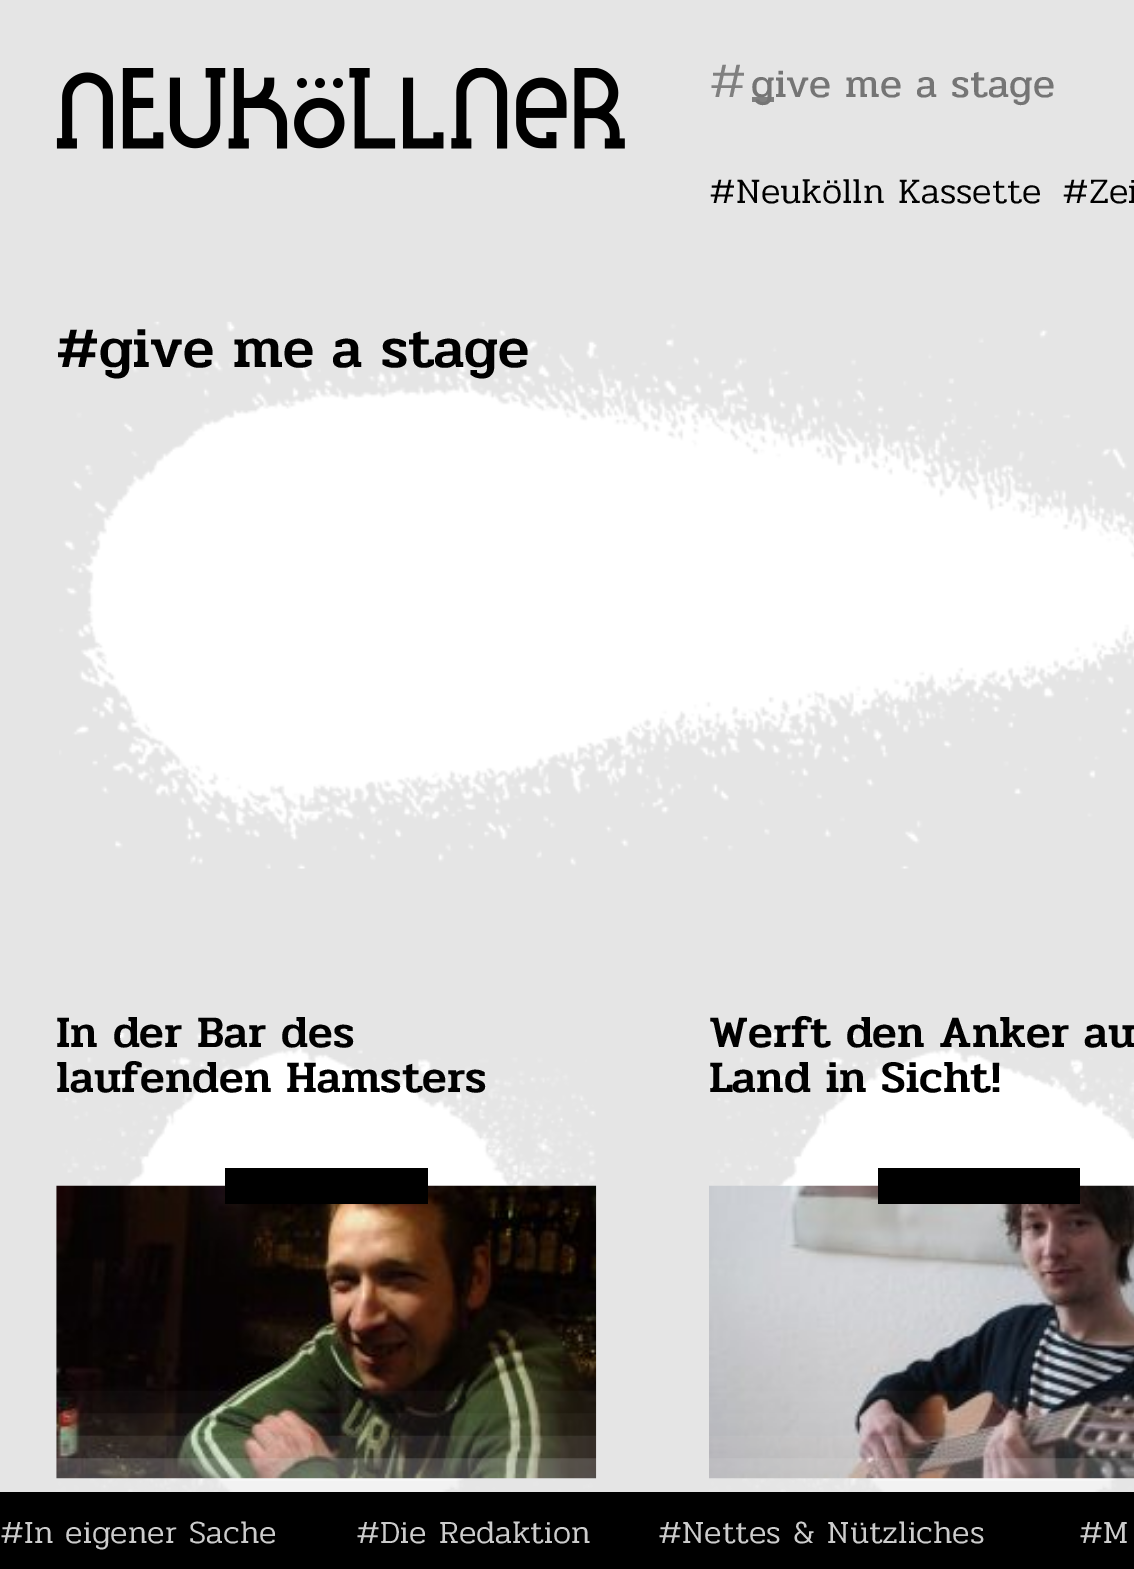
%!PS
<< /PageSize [1134 1569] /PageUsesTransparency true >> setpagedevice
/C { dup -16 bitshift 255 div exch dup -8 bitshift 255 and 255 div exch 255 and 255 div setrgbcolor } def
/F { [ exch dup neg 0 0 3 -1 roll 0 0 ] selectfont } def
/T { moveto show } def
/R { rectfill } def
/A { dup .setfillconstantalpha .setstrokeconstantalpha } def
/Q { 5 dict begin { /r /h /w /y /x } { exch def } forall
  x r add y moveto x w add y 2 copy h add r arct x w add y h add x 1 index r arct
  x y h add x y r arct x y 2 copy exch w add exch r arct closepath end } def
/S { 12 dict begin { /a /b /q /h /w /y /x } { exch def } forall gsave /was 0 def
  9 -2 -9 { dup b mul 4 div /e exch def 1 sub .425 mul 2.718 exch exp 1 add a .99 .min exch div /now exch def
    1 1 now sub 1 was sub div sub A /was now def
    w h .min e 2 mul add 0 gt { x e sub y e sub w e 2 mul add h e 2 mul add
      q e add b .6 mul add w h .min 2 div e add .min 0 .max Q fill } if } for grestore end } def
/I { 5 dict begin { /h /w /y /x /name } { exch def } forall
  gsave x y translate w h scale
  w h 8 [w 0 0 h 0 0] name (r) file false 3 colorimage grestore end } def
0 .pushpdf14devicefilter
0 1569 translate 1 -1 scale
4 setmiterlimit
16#E5E5E5 C
0 0 1134 1569 R
(1.rgb) 56 68 569 81 I
/Pridi-Light 50 F
16#808080 C
(#) 709 97 T
752 97 22 5 R
/Pridi-Regular 40.5 F
16#757575 C
(give me a stage) 751 97 T
/Pridi-Light 36 F
16#000000 C
(#Neukölln Kassette) 709 203 T
(#Zei) 1062 203 T
(2.rgb) 59 321 1075 548 I
/Pridi-Medium 57.5 F
(#give me a stage) 56 367 T
(3.rgb) 56 1032 540 460 I
/Pridi-Medium 45.4 F
(In der Bar des) 56 1047 T
(laufenden Hamsters) 56 1092 T
(4.rgb) 56 1185 541 294 I
225 1168 203 36 R
(5.rgb) 709 1032 425 460 I
(Werft den Anker au) 709 1047 T
(Land in Sicht!) 709 1092 T
(6.rgb) 709 1185 425 294 I
878 1168 202 36 R
16#E5E5E5 C
0 1492 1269 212 0 45 1 S
16#000000 C
0 1492 1134 77 R
/Pridi-Light 32.4 F
16#CCCCCC C
(#In eigener Sache) 0 1543 T
(#Die Redaktion) 356 1543 T
(#Nettes & Nützliches) 658 1543 T
(#M) 1079 1543 T
.poppdf14devicefilter showpage
